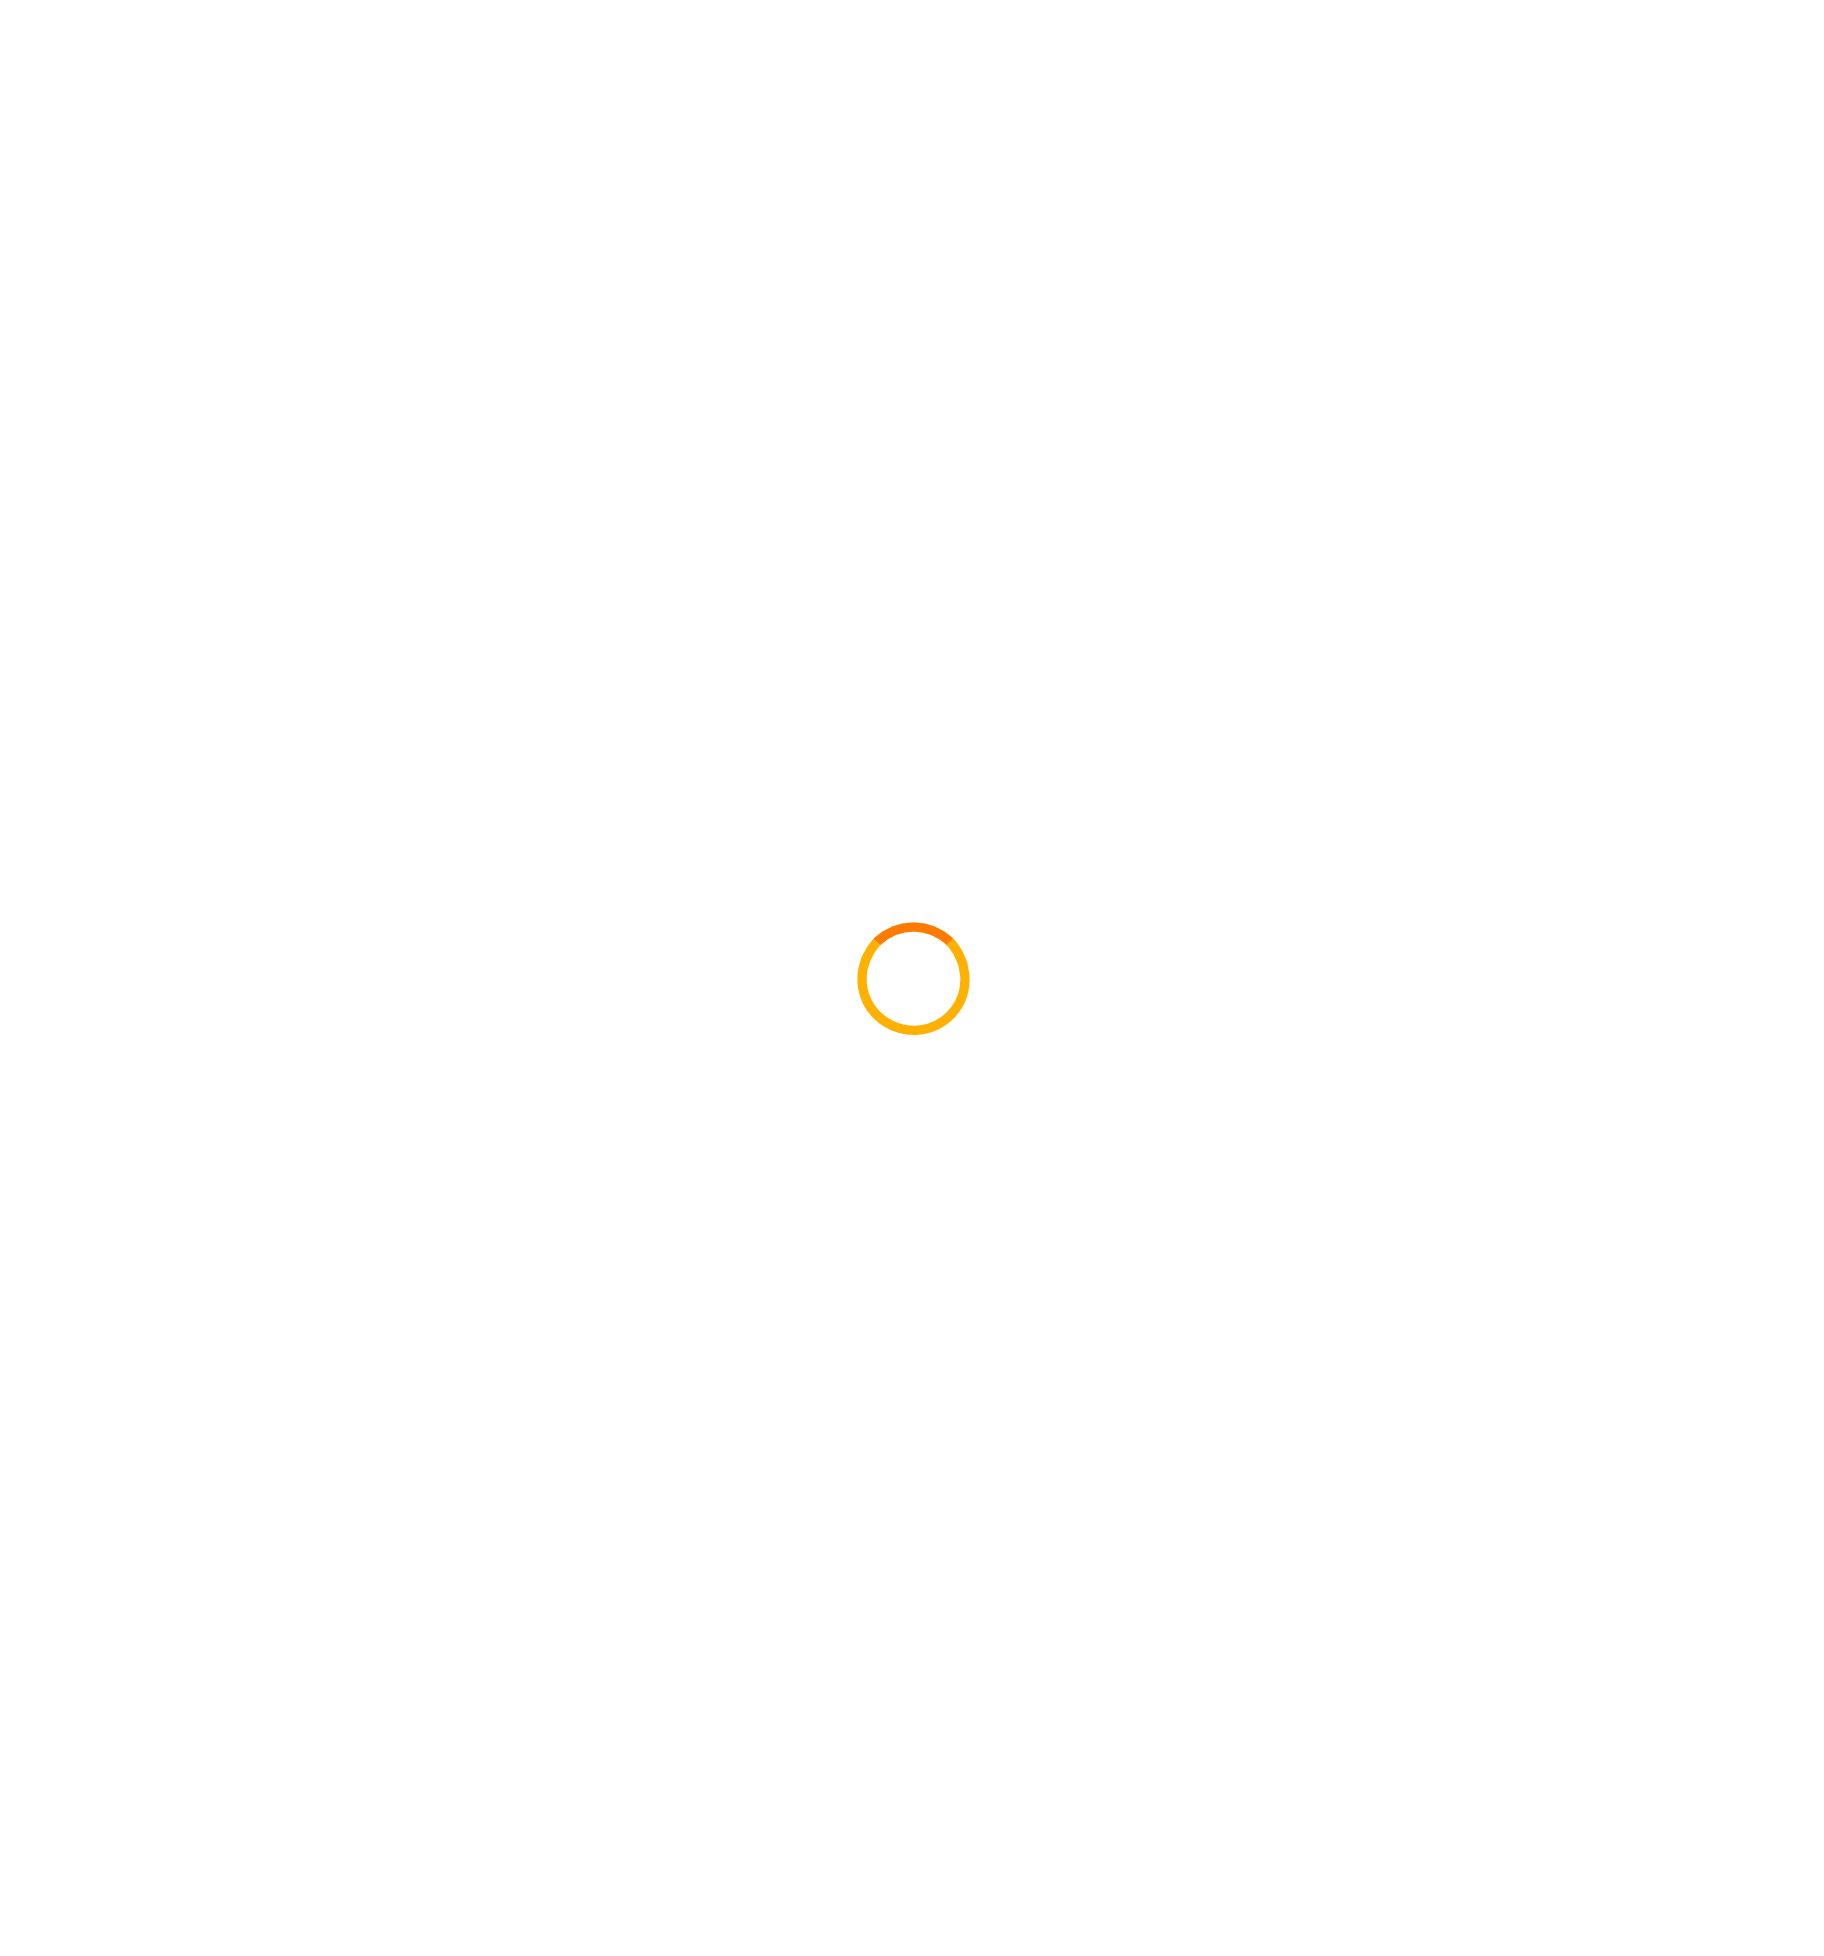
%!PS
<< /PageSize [1824 1956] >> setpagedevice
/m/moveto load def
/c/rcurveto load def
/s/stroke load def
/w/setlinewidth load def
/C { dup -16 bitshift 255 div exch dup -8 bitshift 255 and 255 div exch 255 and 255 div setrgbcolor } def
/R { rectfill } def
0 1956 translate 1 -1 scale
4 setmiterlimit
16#FFFFFF C
0 0 1824 1956 R
16#FF7A00 C
9 w
877 942 m 20 -20 53 -20 73 0 c s
16#FFB000 C
950 942 m 12 12.5 17.5 30 14 47 c -1.5 10 -6.5 19 -14 26.5 c -32.5 32 -88 9 -88 -36.5 c 0 -14 5.5 -27 15 -37 c s
showpage
